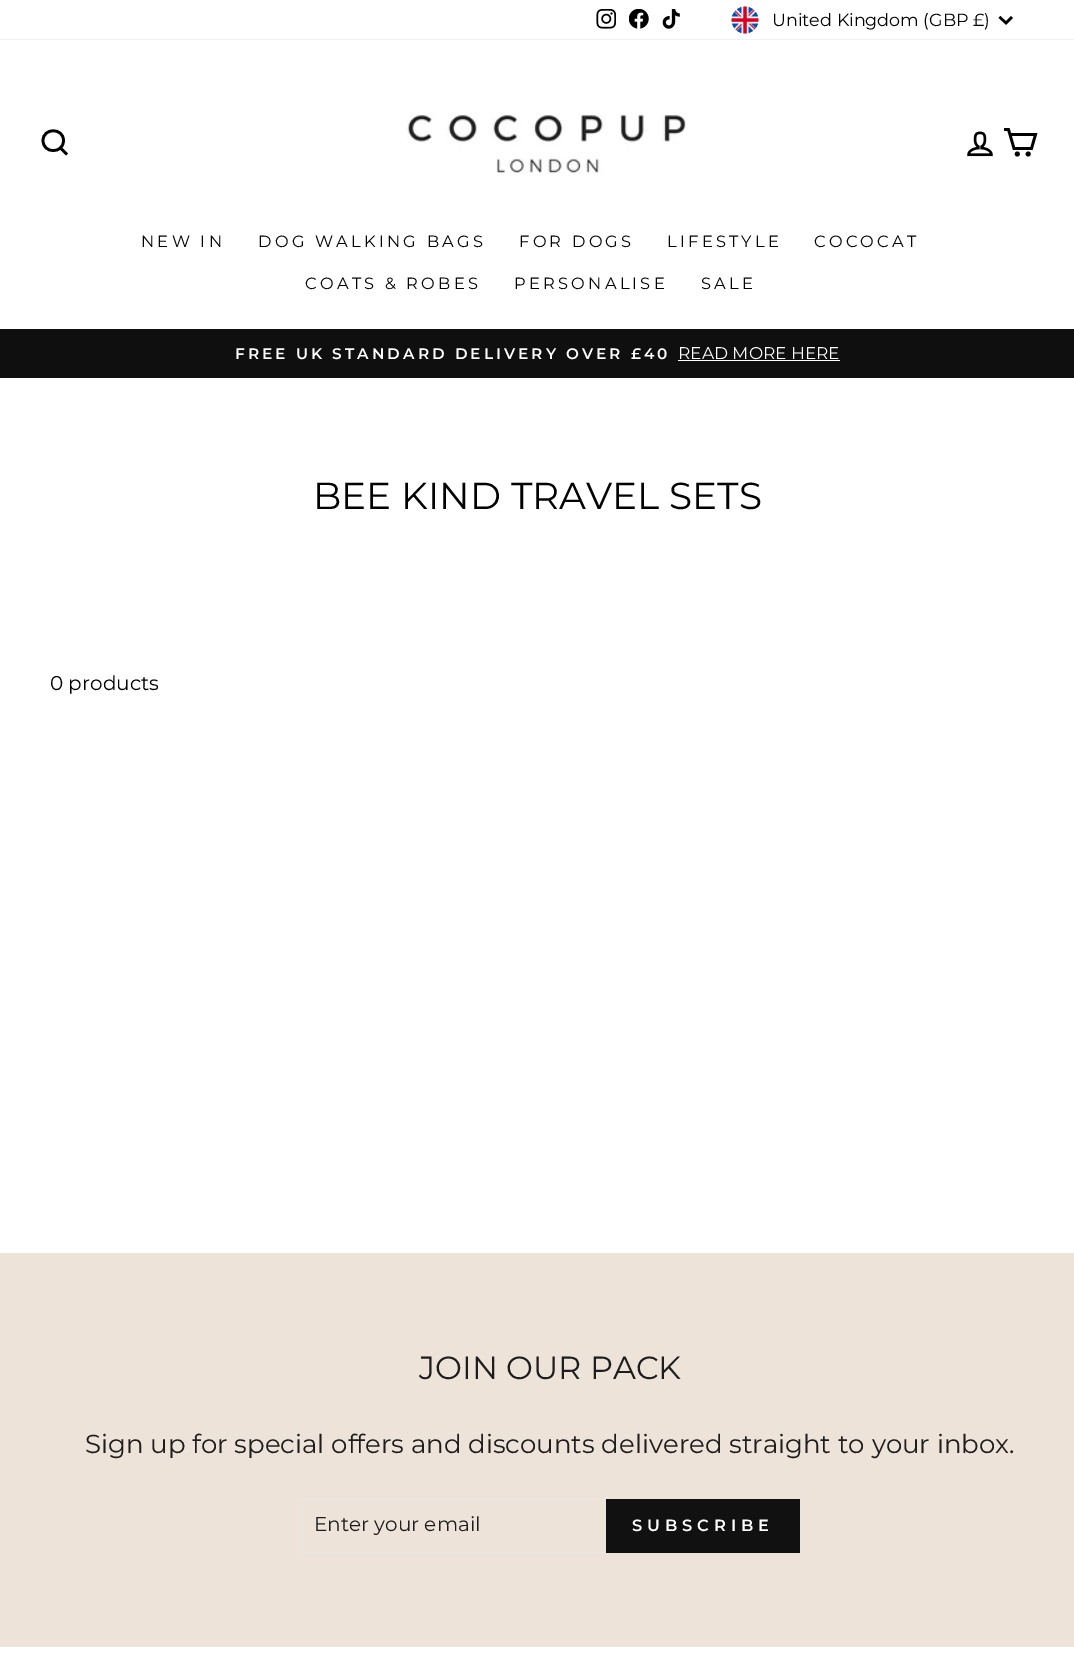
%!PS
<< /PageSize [1074 1660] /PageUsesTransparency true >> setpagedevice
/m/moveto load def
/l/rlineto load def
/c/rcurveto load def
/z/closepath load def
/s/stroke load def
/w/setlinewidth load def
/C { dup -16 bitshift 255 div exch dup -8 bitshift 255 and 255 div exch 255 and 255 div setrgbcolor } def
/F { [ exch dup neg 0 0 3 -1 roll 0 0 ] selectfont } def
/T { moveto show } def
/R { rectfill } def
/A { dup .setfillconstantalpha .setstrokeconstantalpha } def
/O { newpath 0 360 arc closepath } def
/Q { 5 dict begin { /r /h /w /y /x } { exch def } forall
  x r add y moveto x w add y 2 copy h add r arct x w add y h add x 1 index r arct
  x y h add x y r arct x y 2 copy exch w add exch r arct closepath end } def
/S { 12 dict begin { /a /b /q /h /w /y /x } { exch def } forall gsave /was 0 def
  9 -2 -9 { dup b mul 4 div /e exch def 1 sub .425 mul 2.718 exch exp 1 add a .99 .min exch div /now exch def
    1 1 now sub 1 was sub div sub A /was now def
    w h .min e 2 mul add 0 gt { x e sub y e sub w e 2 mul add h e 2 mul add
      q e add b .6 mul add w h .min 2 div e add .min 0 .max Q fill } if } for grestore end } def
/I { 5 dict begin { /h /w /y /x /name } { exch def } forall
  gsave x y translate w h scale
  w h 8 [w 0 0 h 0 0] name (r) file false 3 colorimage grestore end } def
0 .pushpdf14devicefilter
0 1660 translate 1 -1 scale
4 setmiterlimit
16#FFFFFF C
0 0 1074 1660 R
(1.rgb) 596 9 20 20 I
(2.rgb) 629 9 20 20 I
(3.rgb) 662 9 18 20 I
(4.rgb) 731 6 28 28 I
/Montserrat-Regular 17.5 F
16#000000 C
(United Kingdom \(GBP £\)) 772 26 T
2.5 w
999.5 17 m 6.5 6 l 6 -6 l s
16#0F0F0F C
0 329 1074 49 R
16#000000 C
0 40 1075 289 0 .5 .2 S
16#FFFFFF C
0 40 1074 289 R
16#000000 C
2.7 w
63.5 140.5 m 0 13.5 -20.5 13.5 -20.5 0 c 0 -13 20.5 -13 20.5 0 c z 67 154.5 m -6.5 -6.5 l s
(5.rgb) 406 113 280 61 I
(6.rgb) 967 131 26 26 I
1010 134.5 m 25.5 0 l -4 14 l -17.5 0 l -5.5 -19 l -4.5 0 l s
1017.3 154 1.1 O s
1028.2 154 1.1 O s
/Montserrat-Regular 16.25 F
141 247 m 3.25 0 (NEW IN) ashow
258 247 m 3.25 0 (DOG WALKING BAGS) ashow
519 247 m 3.25 0 (FOR DOGS) ashow
667 247 m 3.25 0 (LIFESTYLE) ashow
814 247 m 3.25 0 (COCOCAT) ashow
305 289 m 3.25 0 (COATS & ROBES) ashow
514 289 m 3.25 0 (PERSONALISE) ashow
701 289 m 3.25 0 (SALE) ashow
/Montserrat-SemiBold 15.3 F
16#FFFFFF C
235 359 m 3.05 0 (FREE UK STANDARD DELIVERY OVER £40) ashow
/Montserrat-Regular 17 F
(READ MORE HERE) 678 359 T
678 360 162 1 R
/Montserrat-Regular 37.5 F
16#000000 C
(BEE KIND TRAVEL SETS) 313 509 T
/Montserrat-Regular 20 F
(0 products) 50 690 T
16#EEE3D9 C
0 1253 1074 393 R
/Montserrat-Regular 32 F
16#1C1D1D C
(JOIN OUR PACK) 419 1379 T
/Montserrat-Regular 26 F
(Sign up for special offers and discounts delivered straight to your inbox.) 85 1453 T
16#E8E8E1 C
1 w
300.5 1499.5 305 53 rectstroke
/Montserrat-Regular 20 F
16#1C1D1D C
(Enter your email) 314 1531 T
16#111111 C
606 1499 194 54 R
/Montserrat-SemiBold 16.25 F
16#FFFFFF C
632 1531 m 4.9 0 (SUBSCRIBE) ashow
16#E8E8E1 C
0 1646 1074 1 R
.poppdf14devicefilter showpage
